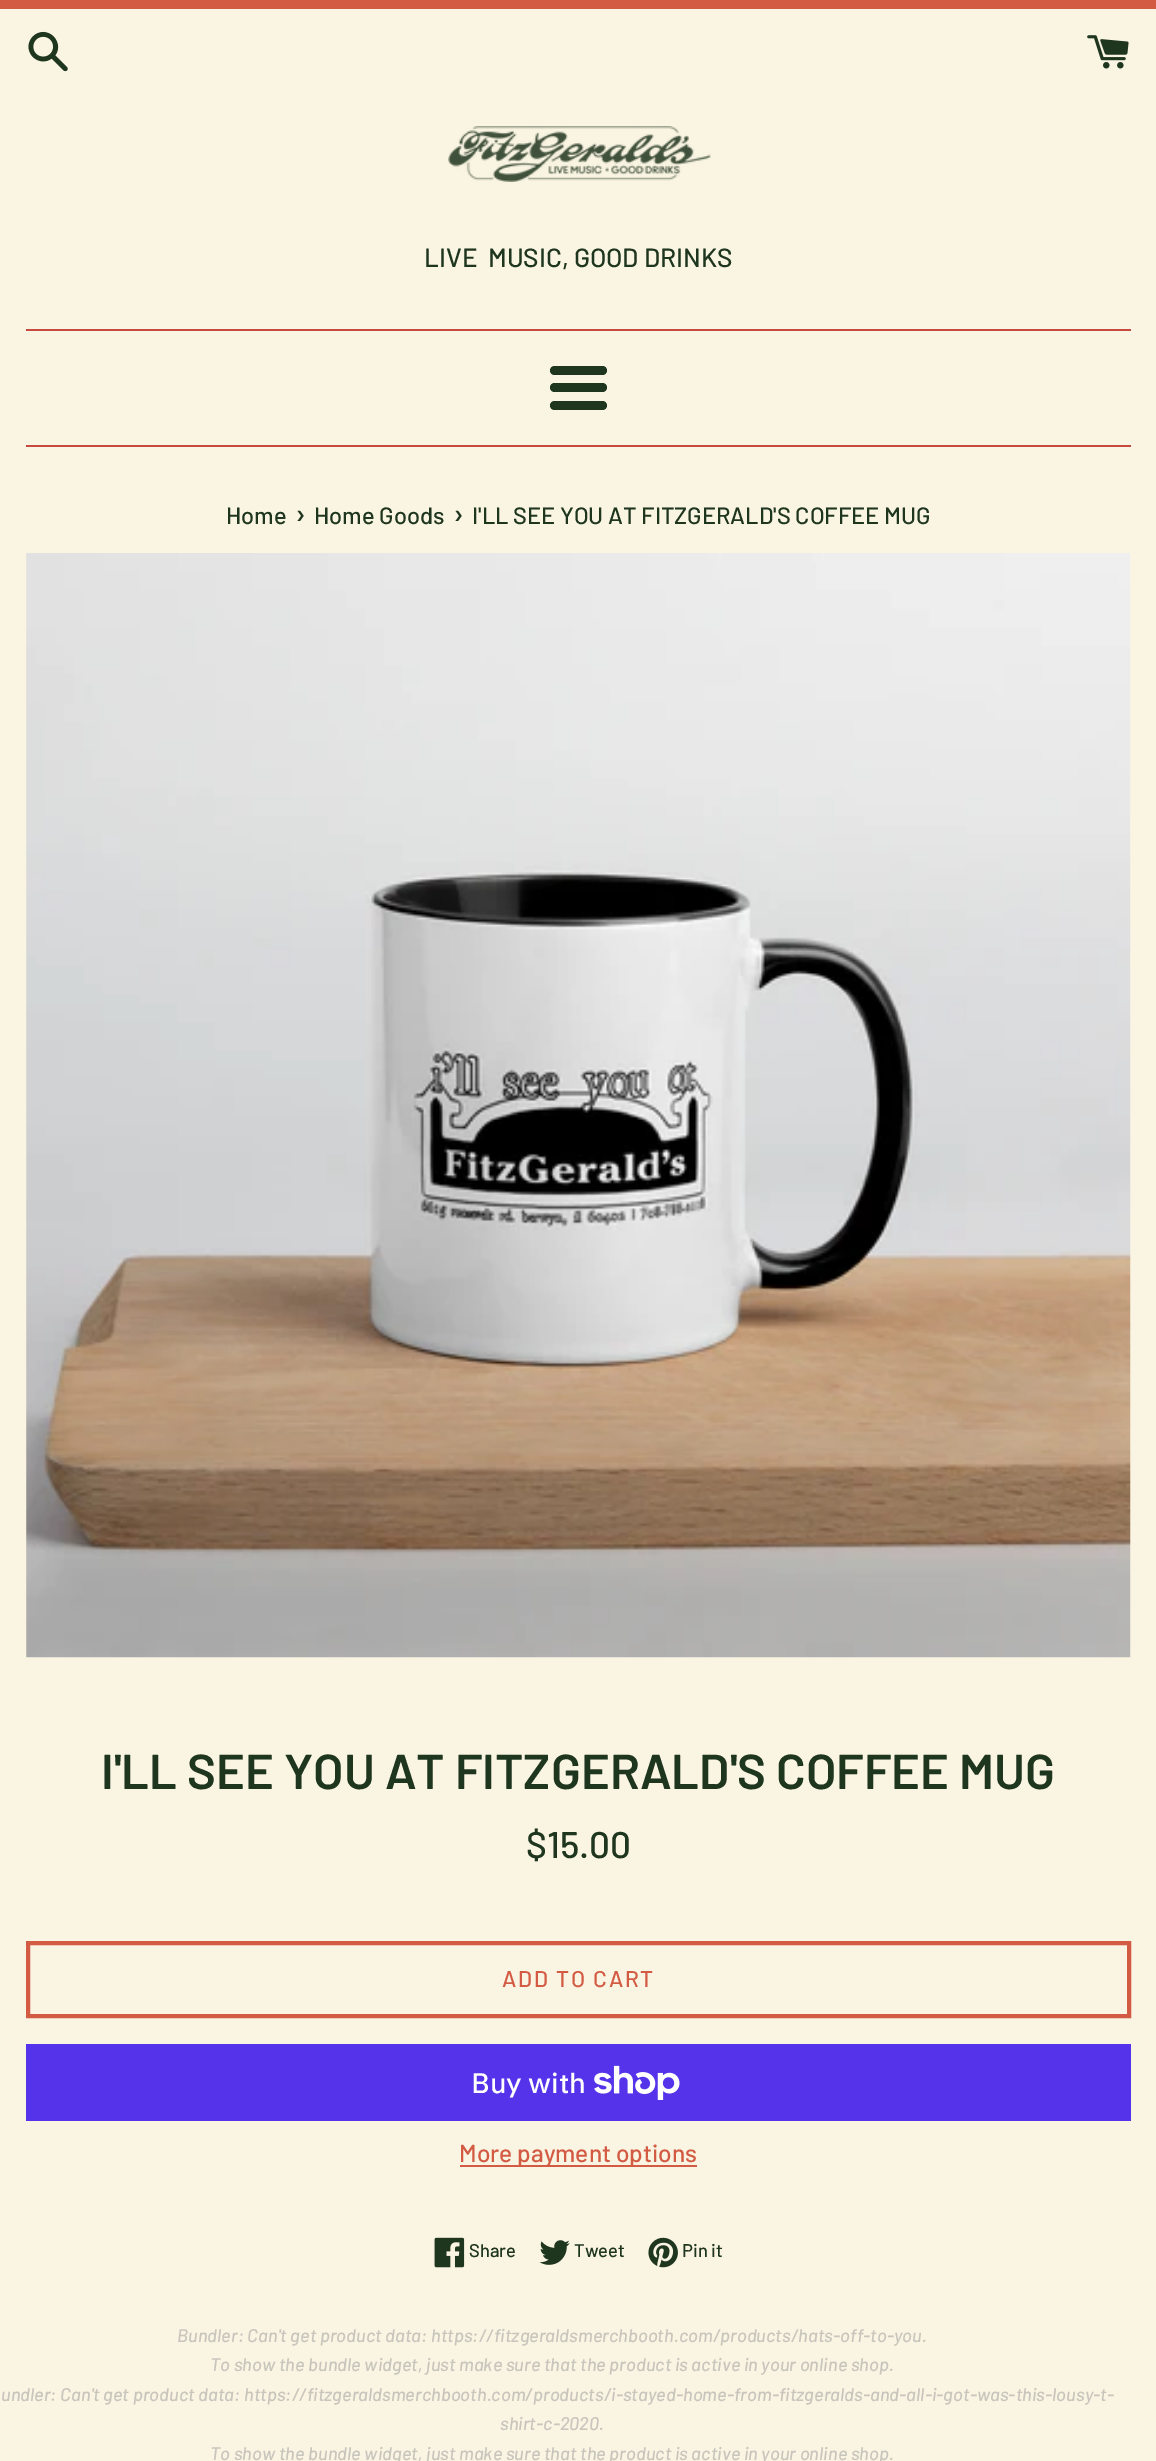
%!PS
<< /PageSize [1156 2461] >> setpagedevice
/m/moveto load def
/f/fill load def
/w/setlinewidth load def
/C { dup -16 bitshift 255 div exch dup -8 bitshift 255 and 255 div exch 255 and 255 div setrgbcolor } def
/F { [ exch dup neg 0 0 3 -1 roll 0 0 ] selectfont } def
/T { moveto show } def
/R { rectfill } def
/Q { 5 dict begin { /r /h /w /y /x } { exch def } forall
  x r add y moveto x w add y 2 copy h add r arct x w add y h add x 1 index r arct
  x y h add x y r arct x y 2 copy exch w add exch r arct closepath end } def
/I { 5 dict begin { /h /w /y /x /name } { exch def } forall
  gsave x y translate w h scale
  w h 8 [w 0 0 h 0 0] name (r) file false 3 colorimage grestore end } def
0 2461 translate 1 -1 scale
4 setmiterlimit
16#FAF4E3 C
0 0 1156 2461 R
16#D35B43 C
0 0 1156 9 R
(1.rgb) 28 31 40 41 I
(2.rgb) 1087 35 42 34 I
(3.rgb) 448 126 263 56 I
/Barlow-Medium 26.25 F
16#1E351E C
(LIVE  MUSIC, GOOD DRINKS) 424 267 T
16#C8493F C
26 329 1105 2 R
16#1E351E C
550 366 57 9 4.5 Q f
550 383 57 9 4.5 Q f
550 401 57 9 4.5 Q f
16#C8493F C
26 445 1105 2 R
/Barlow-Medium 23.6 F
16#1E351E C
(Home) 226 524 T
/Barlow-Medium 29 F
(›) 295 524 T
/Barlow-Medium 23.6 F
(Home Goods) 314 524 T
/Barlow-Medium 29 F
(›) 453 524 T
/Barlow-Medium 23.6 F
(I'LL SEE YOU AT FITZGERALD'S COFFEE MUG) 472 524 T
(4.rgb) 26 553 1105 1105 I
/Barlow-SemiBold 49 F
(I'LL SEE YOU AT FITZGERALD'S COFFEE MUG) 101 1789 T
/Barlow-Medium 37 F
($15.00) 526 1858 T
16#D35B43 C
4 w
28 1943 1101 73 rectstroke
/Barlow-Medium 22.75 F
502 1987 m 1.75 0 (ADD TO CART) ashow
16#5433EB C
26 2044 1105 77 R
/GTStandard-Medium 28 F
16#FFFFFF C
(Buy with) 471 2093 T
(5.rgb) 594 2065 86 35 I
16#D35B43 C
460 2165 237 2 R
/Barlow-Medium 24.5 F
(More payment options) 459 2162 T
(6.rgb) 434 2237 31 31 I
/Barlow-Medium 18.38 F
16#1E351E C
(Share) 469 2257 T
(7.rgb) 539 2240 31 25 I
(Tweet) 574 2257 T
(8.rgb) 648 2237 30 31 I
(Pin it) 682 2257 T
/Barlow-MediumItalic 18.38 F
16#C8C5BC C
(Bundler: Can't get product data: https://fitzgeraldsmerchbooth.com/products/hats-off-to-you.) 177 2342 T
(To show the bundle widget, just make sure that the product is active in your online shop.) 210 2371 T
(undler: Can't get product data: https://fitzgeraldsmerchbooth.com/products/i-stayed-home-from-fitzgeralds-and-all-i-got-was-this-lousy-t-) 1 2401 T
(shirt-c-2020.) 500 2430 T
(To show the bundle widget, just make sure that the product is active in your online shop.) 210 2460 T
showpage
